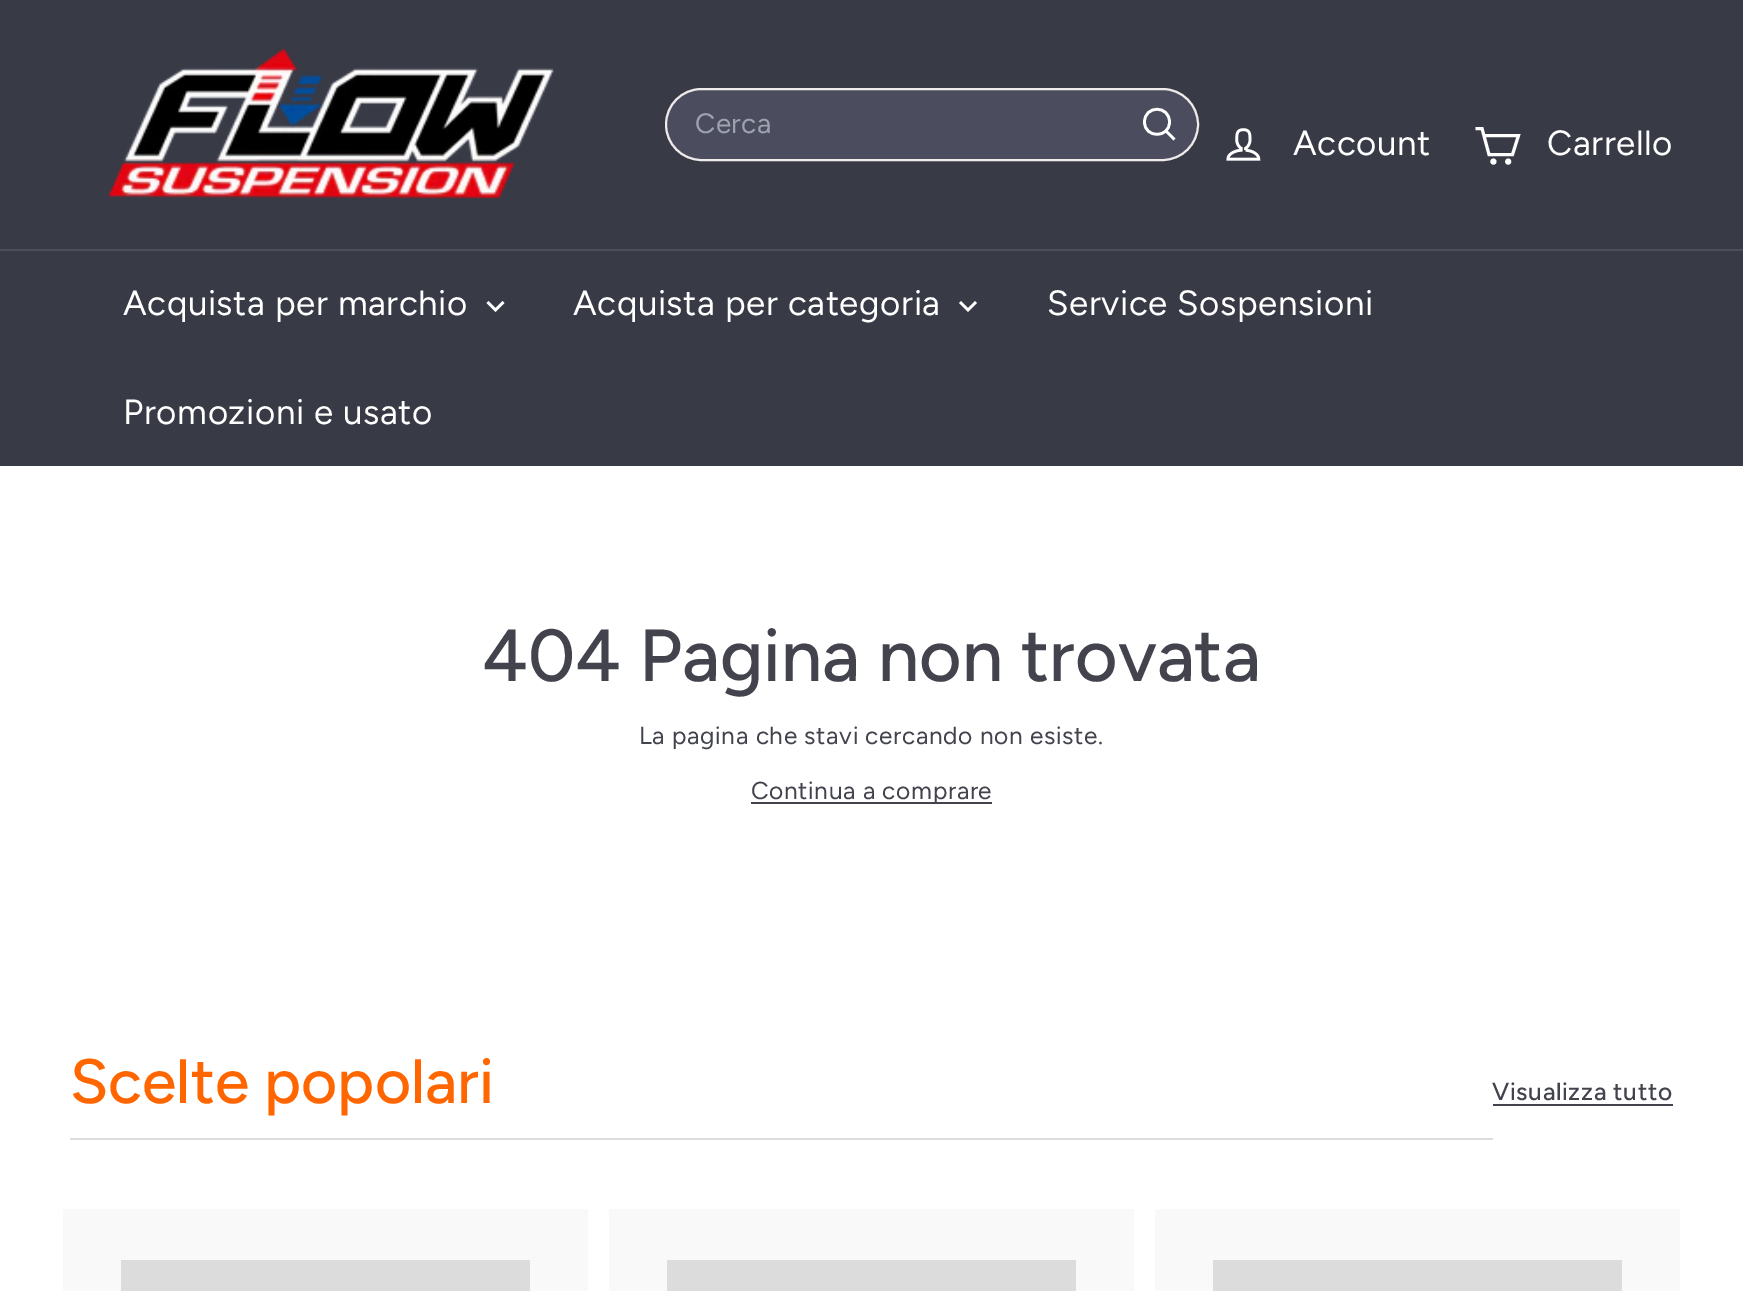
%!PS
<< /PageSize [1743 1291] >> setpagedevice
/m/moveto load def
/l/rlineto load def
/c/rcurveto load def
/f/fill load def
/s/stroke load def
/q/gsave load def
/Q_/grestore load def
/w/setlinewidth load def
/C { dup -16 bitshift 255 div exch dup -8 bitshift 255 and 255 div exch 255 and 255 div setrgbcolor } def
/F { [ exch dup neg 0 0 3 -1 roll 0 0 ] selectfont } def
/T { moveto show } def
/R { rectfill } def
/O { newpath 0 360 arc closepath } def
/Q { 5 dict begin { /r /h /w /y /x } { exch def } forall
  x r add y moveto x w add y 2 copy h add r arct x w add y h add x 1 index r arct
  x y h add x y r arct x y 2 copy exch w add exch r arct closepath end } def
/I { 5 dict begin { /h /w /y /x /name } { exch def } forall
  gsave x y translate w h scale
  w h 8 [w 0 0 h 0 0] name (r) file false 3 colorimage grestore end } def
0 1291 translate 1 -1 scale
4 setmiterlimit
16#FFFFFF C
0 0 1743 1291 R
16#F9F9FA C
1155 1209 525 82 R
609 1209 525 82 R
63 1209 525 82 R
16#383A46 C
0 0 1743 249 R
(1.rgb) 108 48 446 151 I
16#4B4D5E C
666 89 532 71 35.5 Q q f Q_
16#EFEBEB C
2 w
s
/Figtree-Regular 28 F
16#9CA3AF C
695 133 m .5 0 (Cerca) ashow
16#FFFFFF C
2.7 w
1169.5 122 m 0 16.5 -25 16.5 -25 0 c 0 -17 25 -17 25 0 c 1174.5 139.5 m -8.5 -8.5 l s
(2.rgb) 1226 128 35 33 I
/Figtree-Regular 35 F
1293 155 m .6 0 (Account) ashow
3 w
1484 135.5 m 34.5 0 l -6 19 l -23.5 0 l -7 -26 l -6.5 0 l s
1493.4 161.6 1.5 O s
1508.2 161.6 1.5 O s
1547 155 m .6 0 (Carrello) ashow
16#383A46 C
0 251 1743 215 R
16#4C4E59 C
0 249 1743 2 R
16#FFFFFF C
123 315 m .6 0 (Acquista per marchio) ashow
2.5 w
487.5 302 m 8 8 l 8 -8 l s
573 315 m .6 0 (Acquista per categoria) ashow
960 302 m 8 8 l 8 -8 l s
1047 315 m .6 0 (Service Sospensioni) ashow
123 424 m .6 0 (Promozioni e usato) ashow
/Figtree-Medium 73.5 F
16#42434D C
(404 Pagina non trovata) 482 681 T
/Figtree-Regular 24.5 F
639 744 m .6 0 (La pagina che stavi cercando non esiste.) ashow
751 802 241 2 R
751 799 m .6 0 (Continua a comprare) ashow
16#DDDDDD C
70 1138 1423 2 R
/Figtree-Medium 62.5 F
16#FF6600 C
(Scelte popolari) 70 1103 T
/Figtree-Medium 24.5 F
16#42434D C
1492 1100 m .6 0 (Visualizza tutto) ashow
1493 1104 180 2 R
16#DCDCDD C
121 1260 409 31 R
667 1260 409 31 R
1213 1260 409 31 R
showpage
